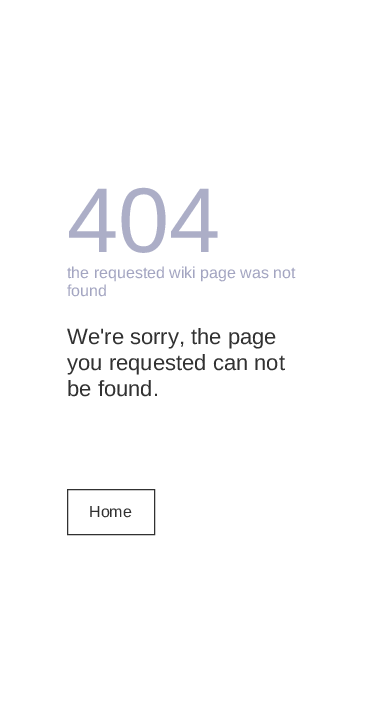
%!PS
<< /PageSize [367 714] >> setpagedevice
/C { dup -16 bitshift 255 div exch dup -8 bitshift 255 and 255 div exch 255 and 255 div setrgbcolor } def
/F { [ exch dup neg 0 0 3 -1 roll 0 0 ] selectfont } def
/T { moveto show } def
/R { rectfill } def
0 714 translate 1 -1 scale
4 setmiterlimit
16#FFFFFF C
0 0 367 714 R
/LiberationSans-Regular 92 F
16#ACAEC7 C
(404) 67 252 T
/LiberationSans-Regular 16 F
16#A3A5C1 C
(the requested wiki page was not) 67 278 T
(found) 67 296 T
/LiberationSans-Regular 22 F
16#313131 C
(We're sorry, the page) 67 344 T
(you requested can not) 67 370 T
(be found.) 67 396 T
67.5 489.5 87 45 rectstroke
/LiberationSans-Regular 16 F
(Home) 89 517 T
showpage
